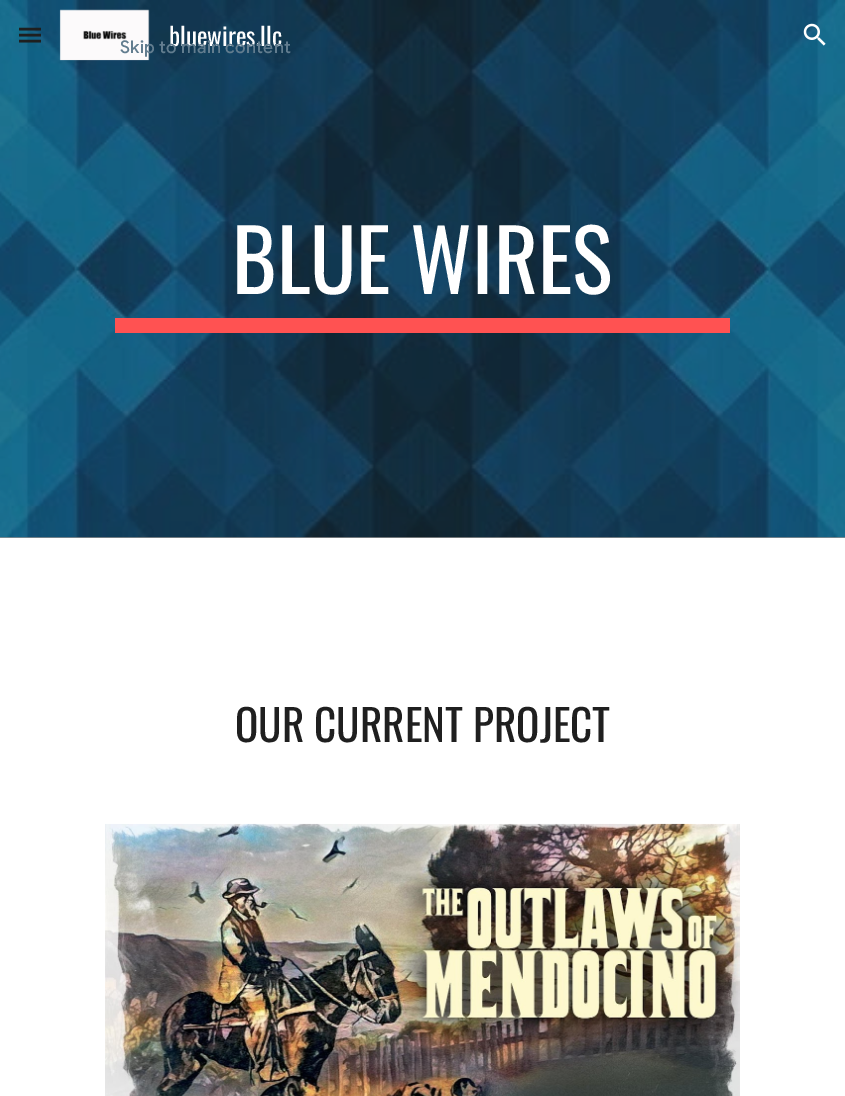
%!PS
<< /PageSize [845 1096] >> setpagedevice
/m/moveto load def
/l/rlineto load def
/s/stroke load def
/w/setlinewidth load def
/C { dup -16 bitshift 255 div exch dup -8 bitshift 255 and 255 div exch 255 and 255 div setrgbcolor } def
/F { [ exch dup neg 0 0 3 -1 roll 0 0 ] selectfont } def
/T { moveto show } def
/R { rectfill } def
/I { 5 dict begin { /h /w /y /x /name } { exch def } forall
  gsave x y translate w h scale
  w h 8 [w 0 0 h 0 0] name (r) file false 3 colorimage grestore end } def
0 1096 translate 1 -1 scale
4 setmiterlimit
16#FFFFFF C
0 0 845 1096 R
16#909090 C
0 537 845 1 R
(3.rgb) 0 0 845 538 I
16#1F1F1F C
2.5 w
19 29 m 22 0 l 19 35 m 22 0 l 19 41 m 22 0 l s
(1.rgb) 59 9 91 52 I
/Oswald-Regular 25 F
16#FFFFFF C
(bluewires.llc) 169 46 T
(2.rgb) 803 23 23 23 I
/Oswald-Regular 85 F
(BLUE WIRES) 232 294 T
16#FF5252 C
115 318 615 15 R
/Oswald-Regular 43.25 F
16#1F1F1F C
(OUR CURRENT PROJECT) 235 742 T
(4.rgb) 105 823 635 273 I
/GoogleSans-Medium 17.5 F
16#627D8F C
120 53 m .2 0 (Skip to main content) ashow
showpage
